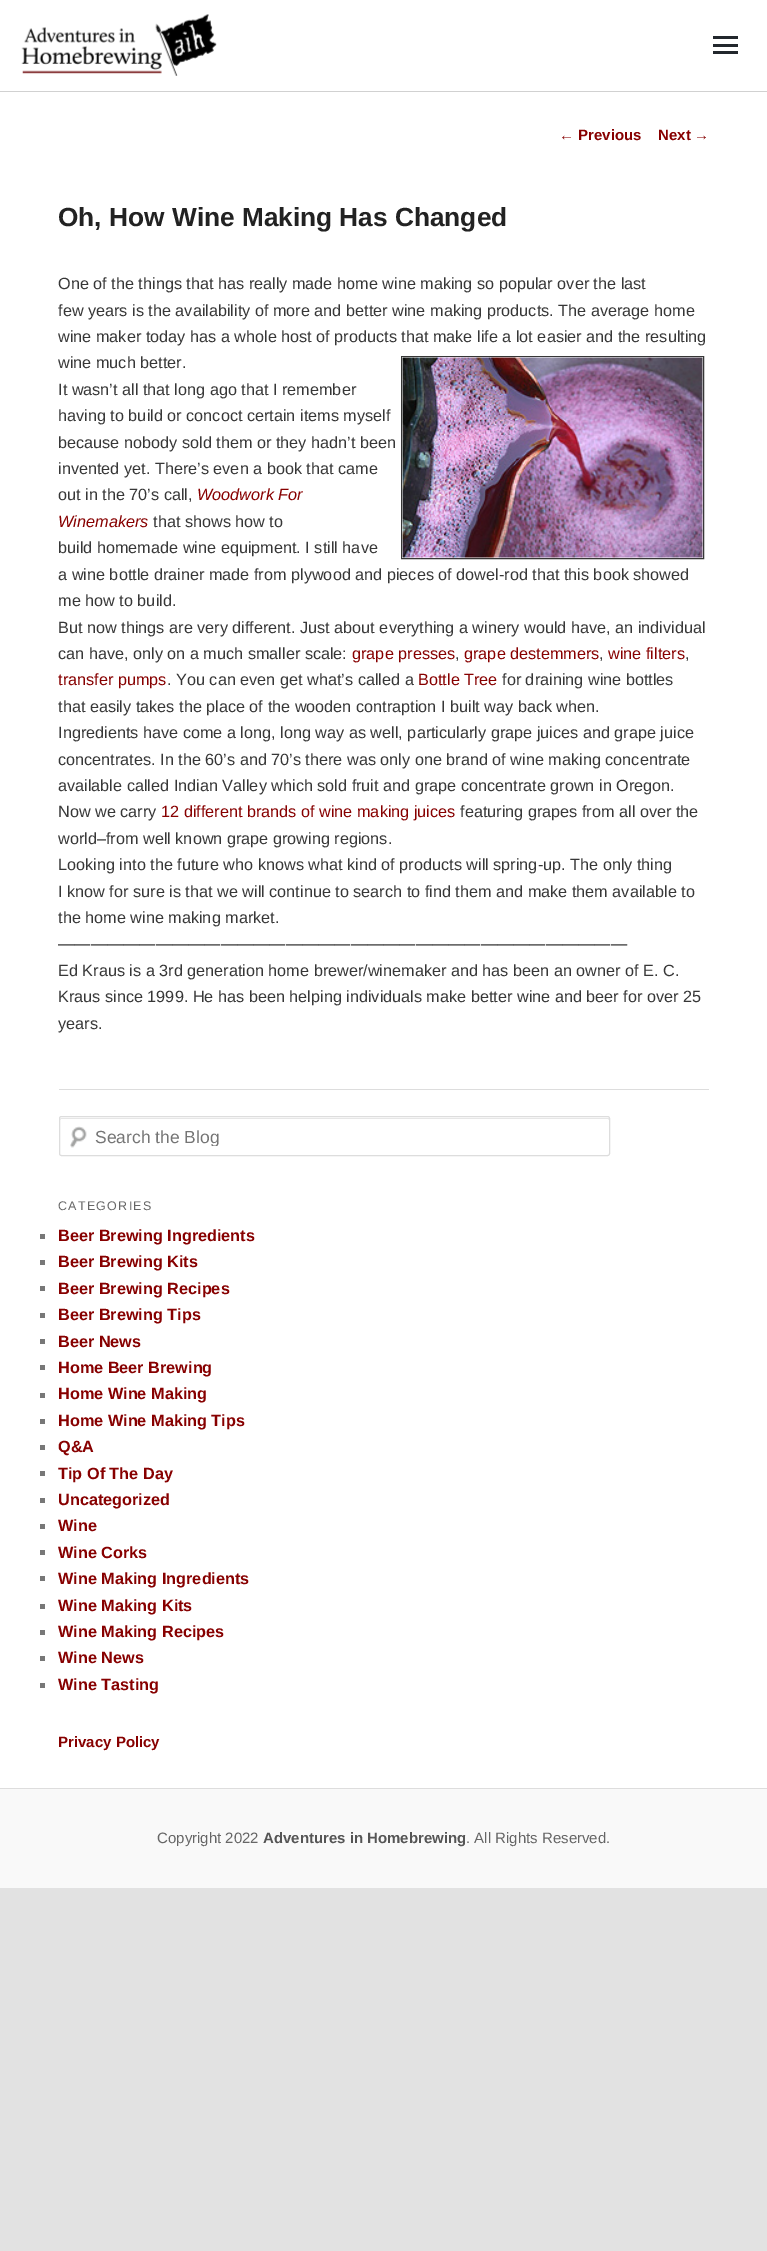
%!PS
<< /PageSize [767 2251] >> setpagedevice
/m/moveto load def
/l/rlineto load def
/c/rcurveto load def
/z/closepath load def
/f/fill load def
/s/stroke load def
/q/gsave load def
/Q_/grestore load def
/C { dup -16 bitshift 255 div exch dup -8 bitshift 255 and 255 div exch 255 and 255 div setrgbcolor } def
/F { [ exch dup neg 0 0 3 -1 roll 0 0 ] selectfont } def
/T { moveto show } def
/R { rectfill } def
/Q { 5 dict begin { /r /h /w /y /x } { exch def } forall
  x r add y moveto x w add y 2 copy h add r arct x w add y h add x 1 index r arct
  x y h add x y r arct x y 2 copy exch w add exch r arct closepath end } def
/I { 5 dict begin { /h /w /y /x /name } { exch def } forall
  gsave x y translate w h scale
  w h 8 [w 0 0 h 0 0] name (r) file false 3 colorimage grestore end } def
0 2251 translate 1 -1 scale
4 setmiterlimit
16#E2E2E2 C
0 0 767 2251 R
16#FFFFFF C
0 0 767 1788 R
16#D1D1D1 C
0 91 767 1 R
(1.rgb) 21 14 196 62 I
16#22272D C
713 44 25 3 R
713 36 25 3 R
713 51 25 3 R
/LiberationSans-Regular 15 F
16#870000 C
(←) 559 140 T
/LiberationSans-Bold 15 F
(Previous) 578 140 T
(Next) 658 140 T
/LiberationSans-Regular 15 F
(→) 694 140 T
16#DDDDDD C
59 1089 650 1 R
/LiberationSans-Bold 26.25 F
16#222222 C
(Oh, How Wine Making Has Changed) 58 226 T
/LiberationSans-Regular 16.25 F
16#373737 C
(One of the things that has really made home wine making so popular over the last) 58 289 T
(few years is the availability of more and better wine making products. The average home) 58 316 T
(wine maker today has a whole host of products that make life a lot easier and the resulting) 58 342 T
(wine much better.) 58 368 T
401.5 356.5 302 202 rectstroke
(2.rgb) 402 357 301 201 I
(It wasn’t all that long ago that I remember) 58 395 T
(having to build or concoct certain items myself) 58 421 T
(because nobody sold them or they hadn’t been) 58 448 T
(invented yet. There’s even a book that came) 58 474 T
(out in the 70’s call,) 58 500 T
/LiberationSans-Italic 16.25 F
16#870000 C
(Woodwork For) 197 500 T
(Winemakers) 58 527 T
/LiberationSans-Regular 16.25 F
16#373737 C
(that shows how to) 153 527 T
(build homemade wine equipment. I still have) 58 553 T
(a wine bottle drainer made from plywood and pieces of dowel-rod that this book showed) 58 580 T
(me how to build.) 58 606 T
(But now things are very different. Just about everything a winery would have, an individual) 58 633 T
(can have, only on a much smaller scale:) 58 659 T
16#870000 C
(grape presses) 352 659 T
16#373737 C
(,) 455 659 T
16#870000 C
(grape destemmers) 464 659 T
16#373737 C
(,) 599 659 T
16#870000 C
(wine filters) 608 659 T
16#373737 C
(,) 685 659 T
16#870000 C
(transfer pumps) 58 685 T
16#373737 C
(. You can even get what’s called a) 167 685 T
16#870000 C
(Bottle Tree) 418 685 T
16#373737 C
(for draining wine bottles) 502 685 T
(that easily takes the place of the wooden contraption I built way back when.) 58 712 T
(Ingredients have come a long, long way as well, particularly grape juices and grape juice) 58 738 T
(concentrates. In the 60’s and 70’s there was only one brand of wine making concentrate) 58 765 T
(available called Indian Valley which sold fruit and grape concentrate grown in Oregon.) 58 791 T
(Now we carry) 58 817 T
16#870000 C
(12 different brands of wine making juices) 161 817 T
16#373737 C
(featuring grapes from all over the) 460 817 T
(world–from well known grape growing regions.) 58 844 T
(Looking into the future who knows what kind of products will spring-up. The only thing) 58 870 T
(I know for sure is that we will continue to search to find them and make them available to) 58 897 T
(the home wine making market.) 58 923 T
(———————————————————————————————————) 58 949 T
(Ed Kraus is a 3rd generation home brewer/winemaker and has been an owner of E. C.) 58 976 T
(Kraus since 1999. He has been helping individuals make better wine and beer for over 25) 58 1002 T
(years.) 58 1029 T
(3.rgb) 70 1126 17 22 I
16#E6E6E6 C
61 1119 m 547 0 l 1 1 l 0 -1 0 -2 -1 -2 c -547 0 l -1 1 l 0 1 l z f
16#DDDDDD C
59.5 1116.5 550 39 2 Q s
q
95 1126 501 20 rectclip
/LiberationSans-Regular 17.5 F
16#757575 C
(Search the Blog) 95 1143 T
Q_
/LiberationSans-Regular 12.5 F
16#666666 C
58 1210 m 1.25 0 (CATEGORIES) ashow
16#777777 C
40 1234 5 5 R
/LiberationSans-Bold 16.25 F
16#870000 C
(Beer Brewing Ingredients) 58 1241 T
16#777777 C
40 1260 5 5 R
16#870000 C
(Beer Brewing Kits) 58 1267 T
16#777777 C
40 1286 5 5 R
16#870000 C
(Beer Brewing Recipes) 58 1294 T
16#777777 C
40 1313 5 5 R
16#870000 C
(Beer Brewing Tips) 58 1320 T
16#777777 C
40 1339 5 5 R
16#870000 C
(Beer News) 58 1347 T
16#777777 C
40 1365 5 5 R
16#870000 C
(Home Beer Brewing) 58 1373 T
16#777777 C
40 1393 5 5 R
16#870000 C
(Home Wine Making) 58 1399 T
16#777777 C
40 1419 5 5 R
16#870000 C
(Home Wine Making Tips) 58 1426 T
16#777777 C
40 1445 5 5 R
16#870000 C
(Q&A) 58 1452 T
16#777777 C
40 1471 5 5 R
16#870000 C
(Tip Of The Day) 58 1479 T
16#777777 C
40 1498 5 5 R
16#870000 C
(Uncategorized) 58 1505 T
16#777777 C
40 1524 5 5 R
16#870000 C
(Wine) 58 1531 T
16#777777 C
40 1550 5 5 R
16#870000 C
(Wine Corks) 58 1558 T
16#777777 C
40 1576 5 5 R
16#870000 C
(Wine Making Ingredients) 58 1584 T
16#777777 C
40 1604 5 5 R
16#870000 C
(Wine Making Kits) 58 1611 T
16#777777 C
40 1630 5 5 R
16#870000 C
(Wine Making Recipes) 58 1637 T
16#777777 C
40 1656 5 5 R
16#870000 C
(Wine News) 58 1663 T
16#777777 C
40 1683 5 5 R
16#870000 C
(Wine Tasting) 58 1690 T
/LiberationSans-Bold 15 F
(Privacy Policy) 58 1747 T
16#F9F9F9 C
0 1789 767 99 R
16#DDDDDD C
0 1788 767 1 R
/LiberationSans-Regular 15 F
16#666666 C
(Copyright 2022) 157 1843 T
/LiberationSans-Bold 15 F
16#555555 C
(Adventures in Homebrewing) 263 1843 T
/LiberationSans-Regular 15 F
16#666666 C
(. All Rights Reserved.) 466 1843 T
showpage
